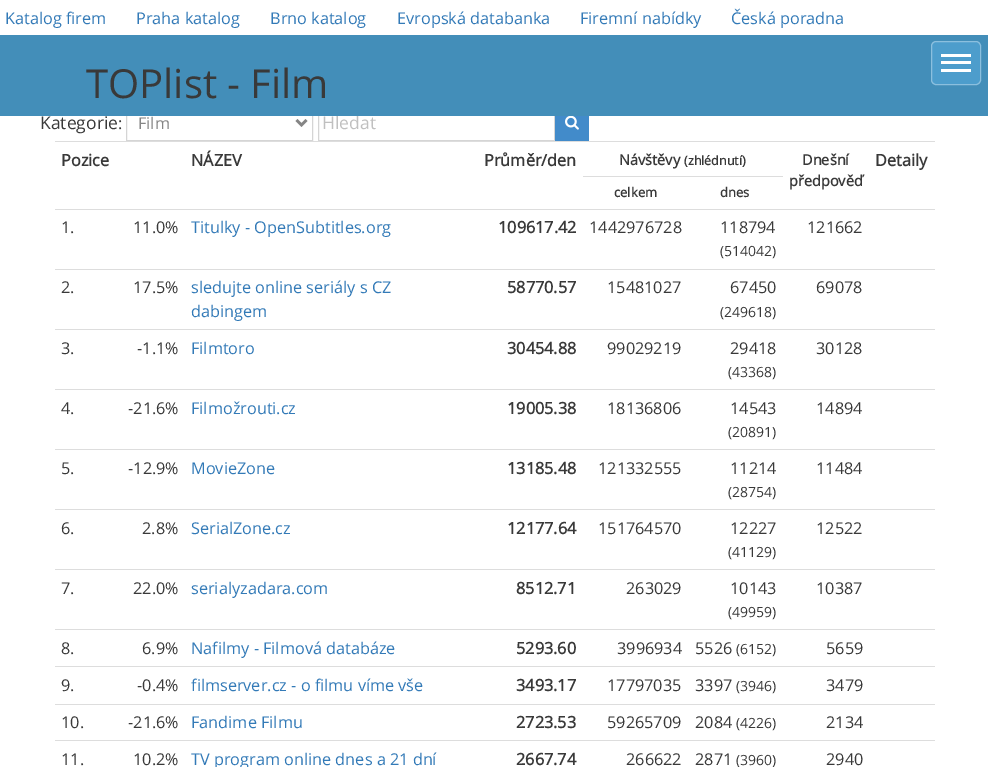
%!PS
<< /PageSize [988 767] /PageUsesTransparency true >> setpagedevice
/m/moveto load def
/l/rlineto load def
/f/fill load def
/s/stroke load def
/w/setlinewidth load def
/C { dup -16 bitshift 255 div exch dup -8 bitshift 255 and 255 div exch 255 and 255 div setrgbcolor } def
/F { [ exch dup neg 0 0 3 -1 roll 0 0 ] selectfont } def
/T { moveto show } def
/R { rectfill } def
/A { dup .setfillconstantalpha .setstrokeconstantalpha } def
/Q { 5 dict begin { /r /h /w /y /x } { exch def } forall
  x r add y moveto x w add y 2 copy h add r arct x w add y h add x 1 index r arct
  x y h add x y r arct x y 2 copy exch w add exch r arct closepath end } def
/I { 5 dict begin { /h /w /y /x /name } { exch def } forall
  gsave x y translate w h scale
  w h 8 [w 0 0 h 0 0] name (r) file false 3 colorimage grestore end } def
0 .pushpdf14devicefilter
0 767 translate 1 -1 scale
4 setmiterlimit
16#FFFFFF C
0 0 988 767 R
/OpenSans-Regular 16.25 F
16#337AB7 C
(Katalog firem) 5 24 T
(Praha katalog) 136 24 T
(Brno katalog) 270 24 T
(Evropská databanka) 397 24 T
(Firemní nabídky) 580 24 T
(Česká poradna) 731 24 T
16#D5D5D5 C
126.5 104.5 186 36 rectstroke
318.5 104.5 236 36 rectstroke
/OpenSans-Regular 17.5 F
16#C0C0C0 C
(Hledat) 322 129 T
16#438EB9 C
0 35 988 81 R
/OpenSans-Regular 40 F
16#393939 C
(TOPlist - Film) 86 98 T
16#4D9DCC C
931 41 50 44 5 Q f
0.35 A
16#FFFFFF C
931.5 41.5 49 43 4.5 Q s
1 A
941 54 30 3 R
941 61 30 3 R
941 69 30 3 R
/OpenSans-Regular 17.5 F
16#393939 C
(Kategorie) 40 129 T
/OpenSans-Regular 16.25 F
(:) 118 129 T
16#858585 C
2.5 w
296.5 120 m 5 5 l 5 -5 l s
(Film) 138 129 T
16#428BCA C
555 116 34 25 R
(1.rgb) 565 116 14 14 I
/OpenSans-Bold 16.25 F
16#393939 C
(Pozice) 61 166 T
(NÁZEV) 191 166 T
(Průměr/den) 484 166 T
/OpenSans-Bold 14.5 F
(Návštěvy) 619 165 T
/OpenSans-Bold 12.5 F
(\(zhlédnutí\)) 684 165 T
/OpenSans-Bold 14.5 F
(Dnešní) 802 165 T
(předpověď) 789 186 T
16#DDDDDD C
55 141 880 1 R
/OpenSans-Bold 16.25 F
16#393939 C
(Detaily) 875 166 T
/OpenSans-Bold 13 F
(celkem) 614 197 T
16#DDDDDD C
583 176 200 1 R
16#393939 C
(dnes) 720 197 T
16#DDDDDD C
55 209 880 1 R
/OpenSans-Regular 16.25 F
16#393939 C
(1.) 61 233 T
(11.0%) 133 233 T
16#337AB7 C
(Titulky - OpenSubtitles.org) 191 233 T
/OpenSans-Bold 16.25 F
16#393939 C
(109617.42) 498 233 T
/OpenSans-Regular 16.25 F
(1442976728) 589 233 T
(118794) 720 233 T
/OpenSans-Regular 14 F
(\(514042\)) 720 256 T
/OpenSans-Regular 16.25 F
(121662) 807 233 T
16#DDDDDD C
55 269 880 1 R
16#393939 C
(2.) 61 293 T
(17.5%) 133 293 T
16#337AB7 C
(sledujte online seriály s CZ) 191 293 T
(dabingem) 191 317 T
/OpenSans-Bold 16.25 F
16#393939 C
(58770.57) 507 293 T
/OpenSans-Regular 16.25 F
(15481027) 607 293 T
(67450) 730 293 T
/OpenSans-Regular 14 F
(\(249618\)) 720 317 T
/OpenSans-Regular 16.25 F
(69078) 816 293 T
16#DDDDDD C
55 329 880 1 R
16#393939 C
(3.) 61 354 T
(-1.1%) 137 354 T
16#337AB7 C
(Filmtoro) 191 354 T
/OpenSans-Bold 16.25 F
16#393939 C
(30454.88) 507 354 T
/OpenSans-Regular 16.25 F
(99029219) 607 354 T
(29418) 730 354 T
/OpenSans-Regular 14 F
(\(43368\)) 728 377 T
/OpenSans-Regular 16.25 F
(30128) 816 354 T
16#DDDDDD C
55 389 880 1 R
16#393939 C
(4.) 61 414 T
(-21.6%) 128 414 T
16#337AB7 C
(Filmožrouti.cz) 191 414 T
/OpenSans-Bold 16.25 F
16#393939 C
(19005.38) 507 414 T
/OpenSans-Regular 16.25 F
(18136806) 607 414 T
(14543) 730 414 T
/OpenSans-Regular 14 F
(\(20891\)) 728 437 T
/OpenSans-Regular 16.25 F
(14894) 816 414 T
16#DDDDDD C
55 449 880 1 R
16#393939 C
(5.) 61 474 T
(-12.9%) 128 474 T
16#337AB7 C
(MovieZone) 191 474 T
/OpenSans-Bold 16.25 F
16#393939 C
(13185.48) 507 474 T
/OpenSans-Regular 16.25 F
(121332555) 598 474 T
(11214) 730 474 T
/OpenSans-Regular 14 F
(\(28754\)) 728 497 T
/OpenSans-Regular 16.25 F
(11484) 816 474 T
16#DDDDDD C
55 509 880 1 R
16#393939 C
(6.) 61 534 T
(2.8%) 142 534 T
16#337AB7 C
(SerialZone.cz) 191 534 T
/OpenSans-Bold 16.25 F
16#393939 C
(12177.64) 507 534 T
/OpenSans-Regular 16.25 F
(151764570) 598 534 T
(12227) 730 534 T
/OpenSans-Regular 14 F
(\(41129\)) 728 557 T
/OpenSans-Regular 16.25 F
(12522) 816 534 T
16#DDDDDD C
55 569 880 1 R
16#393939 C
(7.) 61 594 T
(22.0%) 133 594 T
16#337AB7 C
(serialyzadara.com) 191 594 T
/OpenSans-Bold 16.25 F
16#393939 C
(8512.71) 516 594 T
/OpenSans-Regular 16.25 F
(263029) 626 594 T
(10143) 730 594 T
/OpenSans-Regular 14 F
(\(49959\)) 728 617 T
/OpenSans-Regular 16.25 F
(10387) 816 594 T
16#DDDDDD C
55 629 880 1 R
16#393939 C
(8.) 61 654 T
(6.9%) 142 654 T
16#337AB7 C
(Nafilmy - Filmová databáze) 191 654 T
/OpenSans-Bold 16.25 F
16#393939 C
(5293.60) 516 654 T
/OpenSans-Regular 16.25 F
(3996934) 617 654 T
(5526) 695 654 T
/OpenSans-Regular 14 F
(\(6152\)) 736 654 T
/OpenSans-Regular 16.25 F
(5659) 826 654 T
16#DDDDDD C
55 666 880 1 R
16#393939 C
(9.) 61 691 T
(-0.4%) 137 691 T
16#337AB7 C
(filmserver.cz - o filmu víme vše) 191 691 T
/OpenSans-Bold 16.25 F
16#393939 C
(3493.17) 516 691 T
/OpenSans-Regular 16.25 F
(17797035) 607 691 T
(3397) 695 691 T
/OpenSans-Regular 14 F
(\(3946\)) 736 691 T
/OpenSans-Regular 16.25 F
(3479) 826 691 T
16#DDDDDD C
55 704 880 1 R
16#393939 C
(10.) 61 728 T
(-21.6%) 128 728 T
16#337AB7 C
(Fandime Filmu) 191 728 T
/OpenSans-Bold 16.25 F
16#393939 C
(2723.53) 516 728 T
/OpenSans-Regular 16.25 F
(59265709) 607 728 T
(2084) 695 728 T
/OpenSans-Regular 14 F
(\(4226\)) 736 728 T
/OpenSans-Regular 16.25 F
(2134) 826 728 T
16#DDDDDD C
55 740 880 1 R
16#393939 C
(11.) 61 765 T
(10.2%) 133 765 T
16#337AB7 C
(TV program online dnes a 21 dní) 191 765 T
/OpenSans-Bold 16.25 F
16#393939 C
(2667.74) 516 765 T
/OpenSans-Regular 16.25 F
(266622) 626 765 T
(2871) 695 765 T
/OpenSans-Regular 14 F
(\(3960\)) 736 765 T
/OpenSans-Regular 16.25 F
(2940) 826 765 T
.poppdf14devicefilter showpage
